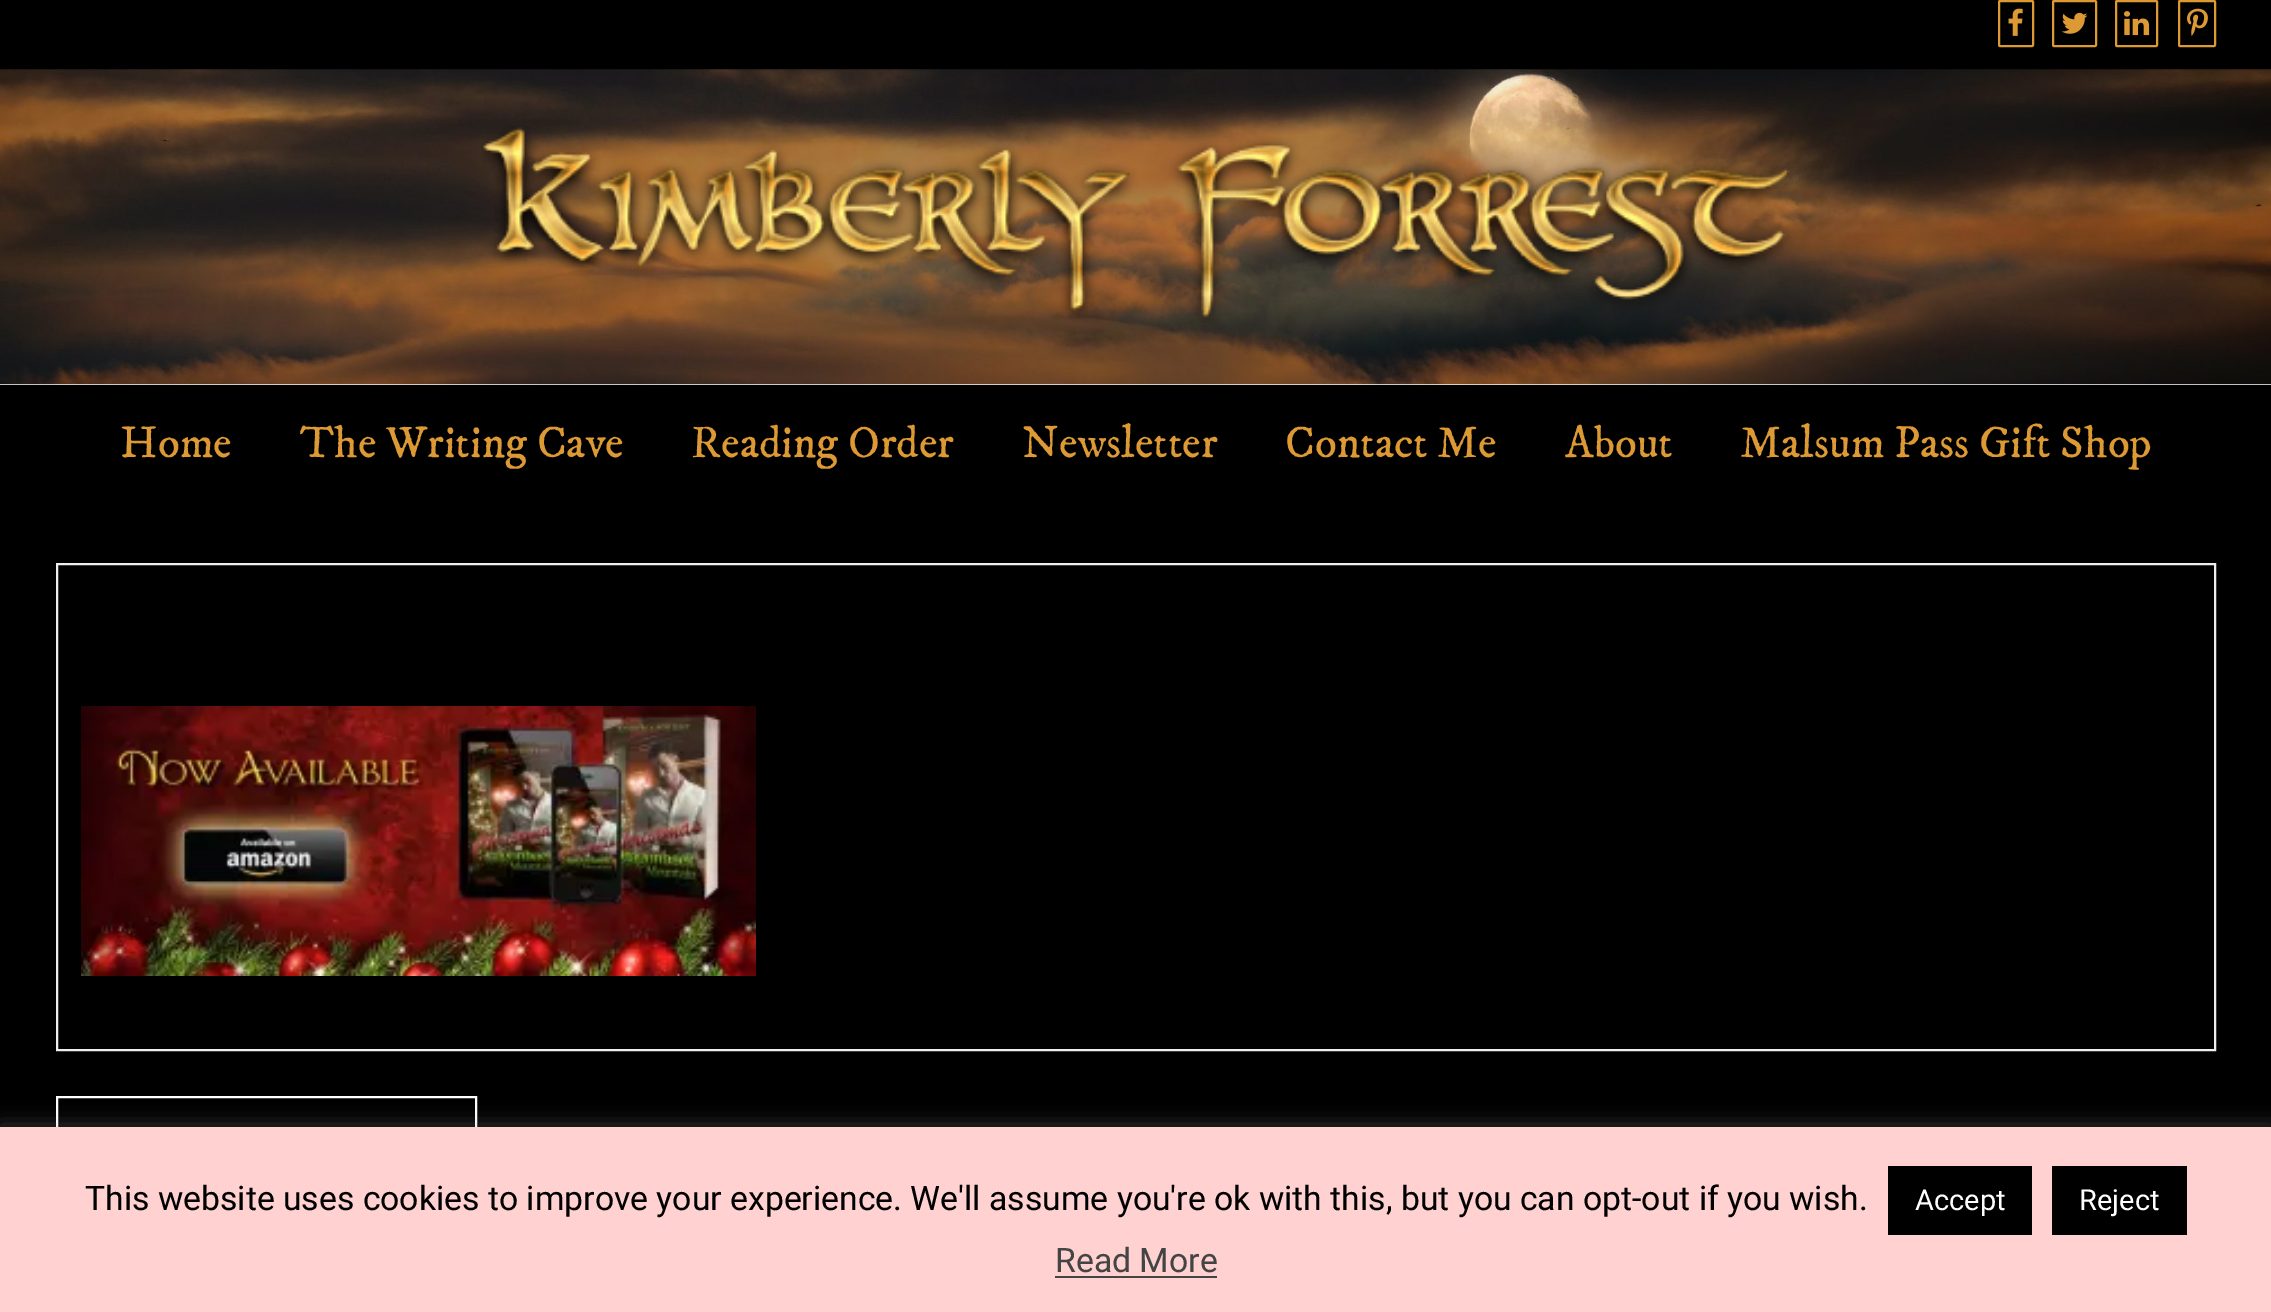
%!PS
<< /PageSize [2271 1312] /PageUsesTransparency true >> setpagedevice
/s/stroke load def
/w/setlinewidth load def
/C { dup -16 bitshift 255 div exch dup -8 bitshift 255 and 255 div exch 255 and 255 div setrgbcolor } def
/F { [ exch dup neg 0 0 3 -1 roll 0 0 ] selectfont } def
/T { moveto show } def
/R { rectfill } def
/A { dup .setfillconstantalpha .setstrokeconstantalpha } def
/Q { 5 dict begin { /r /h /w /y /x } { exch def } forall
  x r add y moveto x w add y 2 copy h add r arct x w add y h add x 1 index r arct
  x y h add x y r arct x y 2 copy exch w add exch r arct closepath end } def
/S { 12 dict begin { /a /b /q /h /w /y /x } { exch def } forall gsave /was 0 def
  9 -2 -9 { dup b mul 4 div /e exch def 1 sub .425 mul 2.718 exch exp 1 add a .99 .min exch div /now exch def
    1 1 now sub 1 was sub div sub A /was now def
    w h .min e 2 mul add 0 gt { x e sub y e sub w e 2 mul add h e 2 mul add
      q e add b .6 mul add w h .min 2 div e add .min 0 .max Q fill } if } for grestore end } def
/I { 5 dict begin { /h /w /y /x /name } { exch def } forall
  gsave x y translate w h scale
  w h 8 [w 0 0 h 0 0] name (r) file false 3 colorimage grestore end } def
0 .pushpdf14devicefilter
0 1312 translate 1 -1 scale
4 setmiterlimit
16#000000 C
0 0 2271 1312 R
16#DD9933 C
2 w
1999 1 34 45 1 Q s
(1.rgb) 2008 8 15 28 I
2053 1 43 45 1 Q s
(2.rgb) 2062 12 26 22 I
2116 1 41 45 1 Q s
(3.rgb) 2124 11 26 25 I
2179 1 36 45 1 Q s
(4.rgb) 2187 8 21 28 I
16#FFFFFF C
0 384 2271 1 R
(5.rgb) 0 69 2271 316 I
(6.rgb) 481 126 1312 197 I
/IMFELLDWPica-Regular 45 F
16#DD9933 C
(Home) 120 457 T
(The Writing Cave) 300 457 T
(Reading Order) 691 457 T
(Newsletter) 1022 457 T
(Contact Me) 1285 457 T
(About) 1565 457 T
(Malsum Pass Gift Shop) 1740 457 T
16#EEEEEE C
57 564 2158 486 rectstroke
(7.rgb) 81 706 675 270 I
16#FFFFFF C
57 1097 419 79 rectstroke
16#ACABAB C
0 1125 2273 187 0 11 .3 S
16#FFD1D1 C
0 1127 2271 185 R
/Roboto-Regular 33.75 F
16#000000 C
(This website uses cookies to improve your experience. We'll assume you're ok with this, but you can opt-out if you wish.) 85 1210 T
1888 1166 144 69 R
/Roboto-Regular 29 F
16#FFFFFF C
(Accept) 1915 1210 T
16#000000 C
2052 1166 135 69 R
16#FFFFFF C
(Reject) 2079 1210 T
/Roboto-Regular 33.75 F
16#444444 C
(Read More) 1055 1272 T
1055 1276 162 2 R
.poppdf14devicefilter showpage
